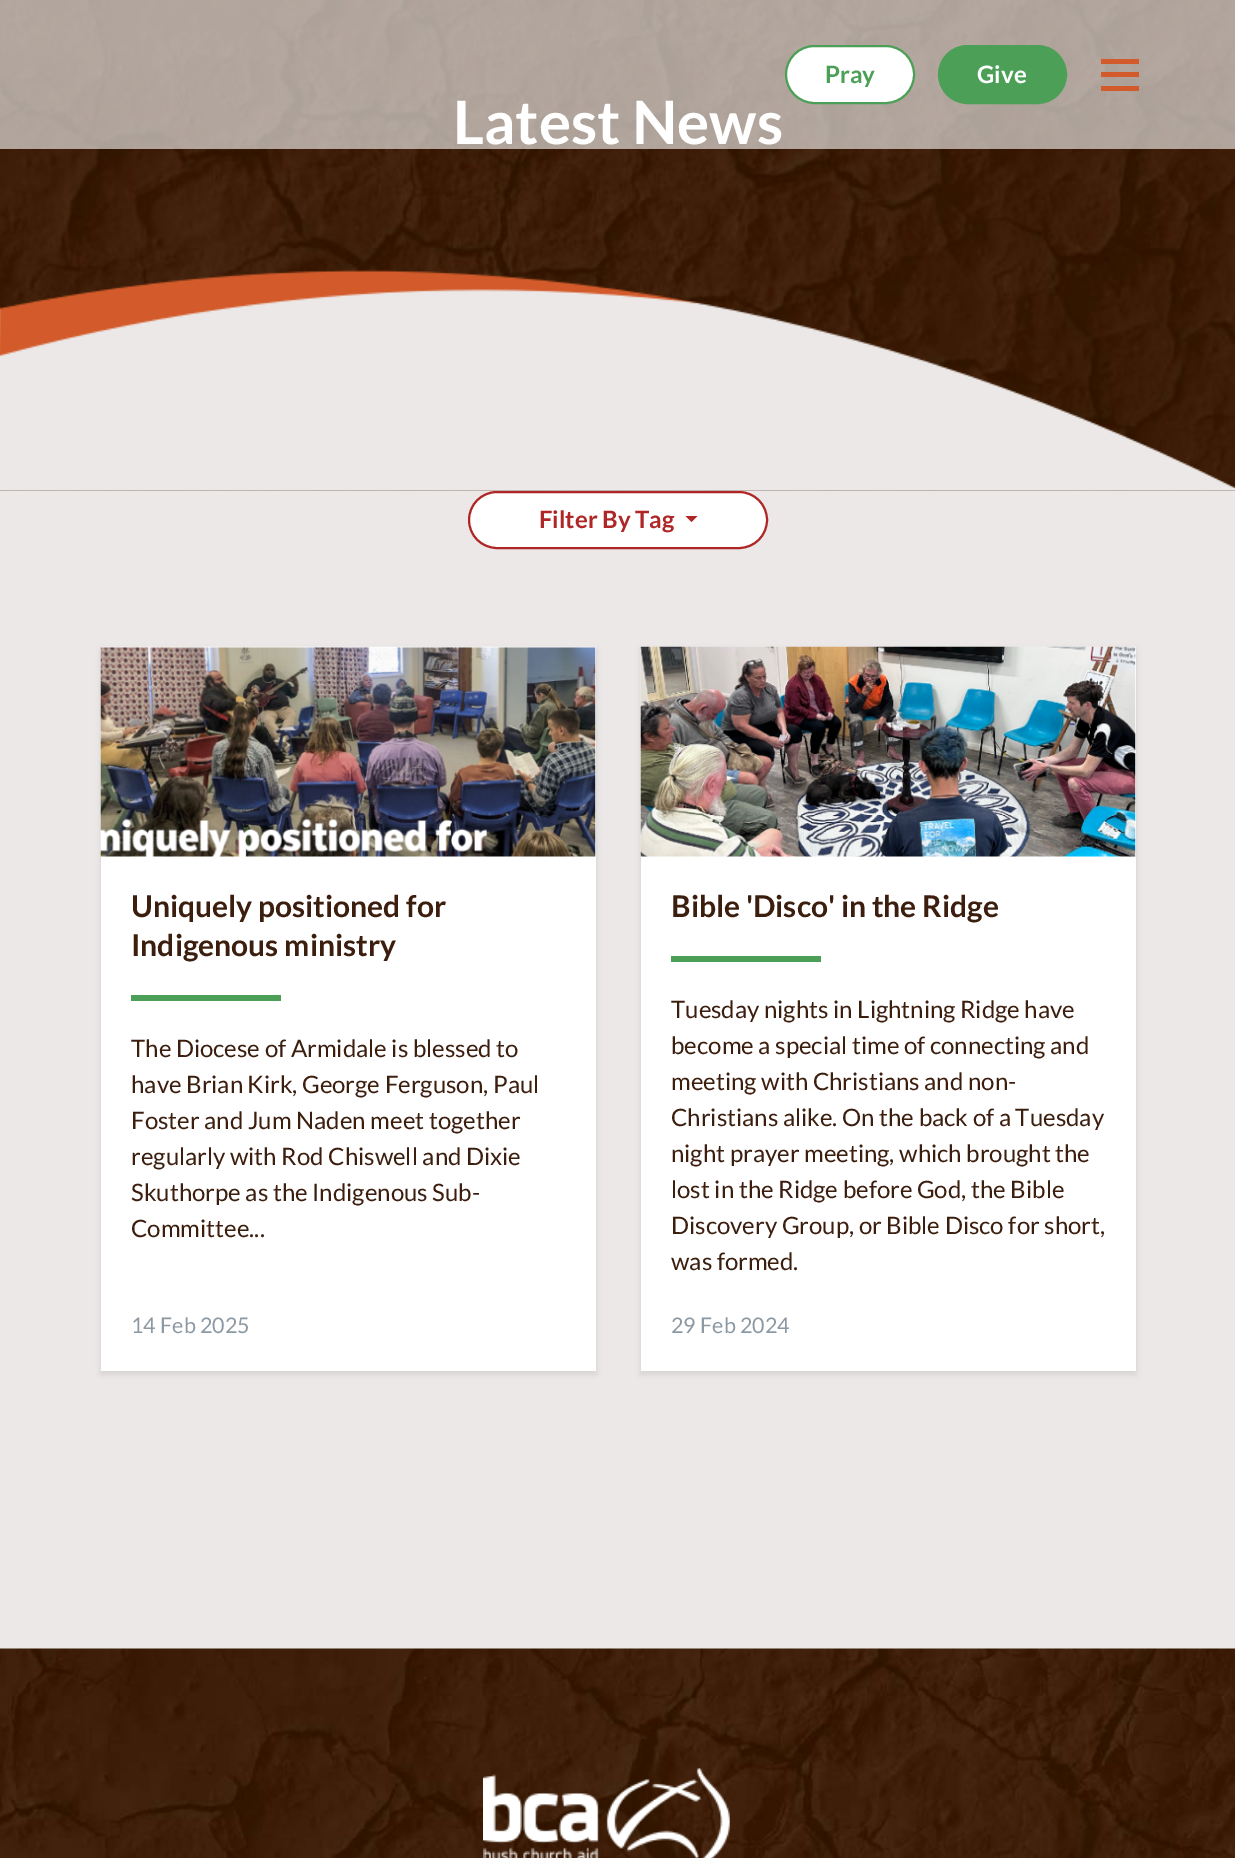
%!PS
<< /PageSize [1235 1858] /PageUsesTransparency true >> setpagedevice
/m/moveto load def
/l/rlineto load def
/z/closepath load def
/f/fill load def
/s/stroke load def
/q/gsave load def
/Q_/grestore load def
/w/setlinewidth load def
/C { dup -16 bitshift 255 div exch dup -8 bitshift 255 and 255 div exch 255 and 255 div setrgbcolor } def
/F { [ exch dup neg 0 0 3 -1 roll 0 0 ] selectfont } def
/T { moveto show } def
/R { rectfill } def
/A { dup .setfillconstantalpha .setstrokeconstantalpha } def
/Q { 5 dict begin { /r /h /w /y /x } { exch def } forall
  x r add y moveto x w add y 2 copy h add r arct x w add y h add x 1 index r arct
  x y h add x y r arct x y 2 copy exch w add exch r arct closepath end } def
/S { 12 dict begin { /a /b /q /h /w /y /x } { exch def } forall gsave /was 0 def
  9 -2 -9 { dup b mul 4 div /e exch def 1 sub .425 mul 2.718 exch exp 1 add a .99 .min exch div /now exch def
    1 1 now sub 1 was sub div sub A /was now def
    w h .min e 2 mul add 0 gt { x e sub y e sub w e 2 mul add h e 2 mul add
      q e add b .6 mul add w h .min 2 div e add .min 0 .max Q fill } if } for grestore end } def
/I { 5 dict begin { /h /w /y /x /name } { exch def } forall
  gsave x y translate w h scale
  w h 8 [w 0 0 h 0 0] name (r) file false 3 colorimage grestore end } def
0 .pushpdf14devicefilter
0 1858 translate 1 -1 scale
4 setmiterlimit
16#FFFFFF C
0 0 1235 1858 R
(1.rgb) 0 0 1235 491 I
/Lato-Bold 60 F
(Latest News) 453 144 T
0.6 A
0 0 1235 149 R
1 A
786 46 128 57 28.5 Q q f Q_
16#4B9F57 C
2 w
s
/Lato-Bold 24 F
(Pray) 825 83 T
939 46 127 57 28.5 Q q f Q_
s
16#FFFFFF C
(Give) 977 83 T
16#D35B2B C
1101 59 38 5 R
1101 72 38 5 R
1101 86 38 5 R
(2.rgb) 0 269 1235 222 I
16#EBE8E7 C
0 491 1235 1158 R
16#FFFFFF C
469 492 298 56 28 Q q f Q_
16#AF2626 C
s
(Filter By Tag) 539 528 T
685.5 516 m 12 0 l -6 6 l z f
16#000000 C
101 650 495 724 0 3 .1 S
16#FFFFFF C
101 647 495 724 R
(3.rgb) 100 646 496 211 I
/Lato-Bold 30 F
16#3C1E0F C
(Uniquely positioned for) 131 917 T
(Indigenous ministry) 131 956 T
16#4B9F57 C
131 995 150 6 R
/Lato-Regular 24 F
16#3C1E0F C
(The Diocese of Armidale is blessed to) 131 1057 T
(have Brian Kirk, George Ferguson, Paul) 131 1093 T
(Foster and Jum Naden meet together) 131 1129 T
(regularly with Rod Chiswell and Dixie) 131 1165 T
(Skuthorpe as the Indigenous Sub-) 131 1201 T
(Committee...) 131 1237 T
/Lato-Regular 21.5 F
16#8C98A2 C
(14 Feb 2025) 131 1333 T
16#000000 C
641 650 495 724 0 3 .1 S
16#FFFFFF C
641 647 495 724 R
(4.rgb) 640 646 496 211 I
/Lato-Bold 30 F
16#3C1E0F C
(Bible 'Disco' in the Ridge) 671 917 T
16#4B9F57 C
671 956 150 6 R
/Lato-Regular 24 F
16#3C1E0F C
(Tuesday nights in Lightning Ridge have) 671 1018 T
(become a special time of connecting and) 671 1054 T
(meeting with Christians and non-) 671 1090 T
(Christians alike. On the back of a Tuesday) 671 1126 T
(night prayer meeting, which brought the) 671 1162 T
(lost in the Ridge before God, the Bible) 671 1198 T
(Discovery Group, or Bible Disco for short,) 671 1234 T
(was formed.) 671 1270 T
/Lato-Regular 21.5 F
16#8C98A2 C
(29 Feb 2024) 671 1333 T
(5.rgb) 0 1648 1235 210 I
(6.rgb) 483 1768 247 90 I
.poppdf14devicefilter showpage
